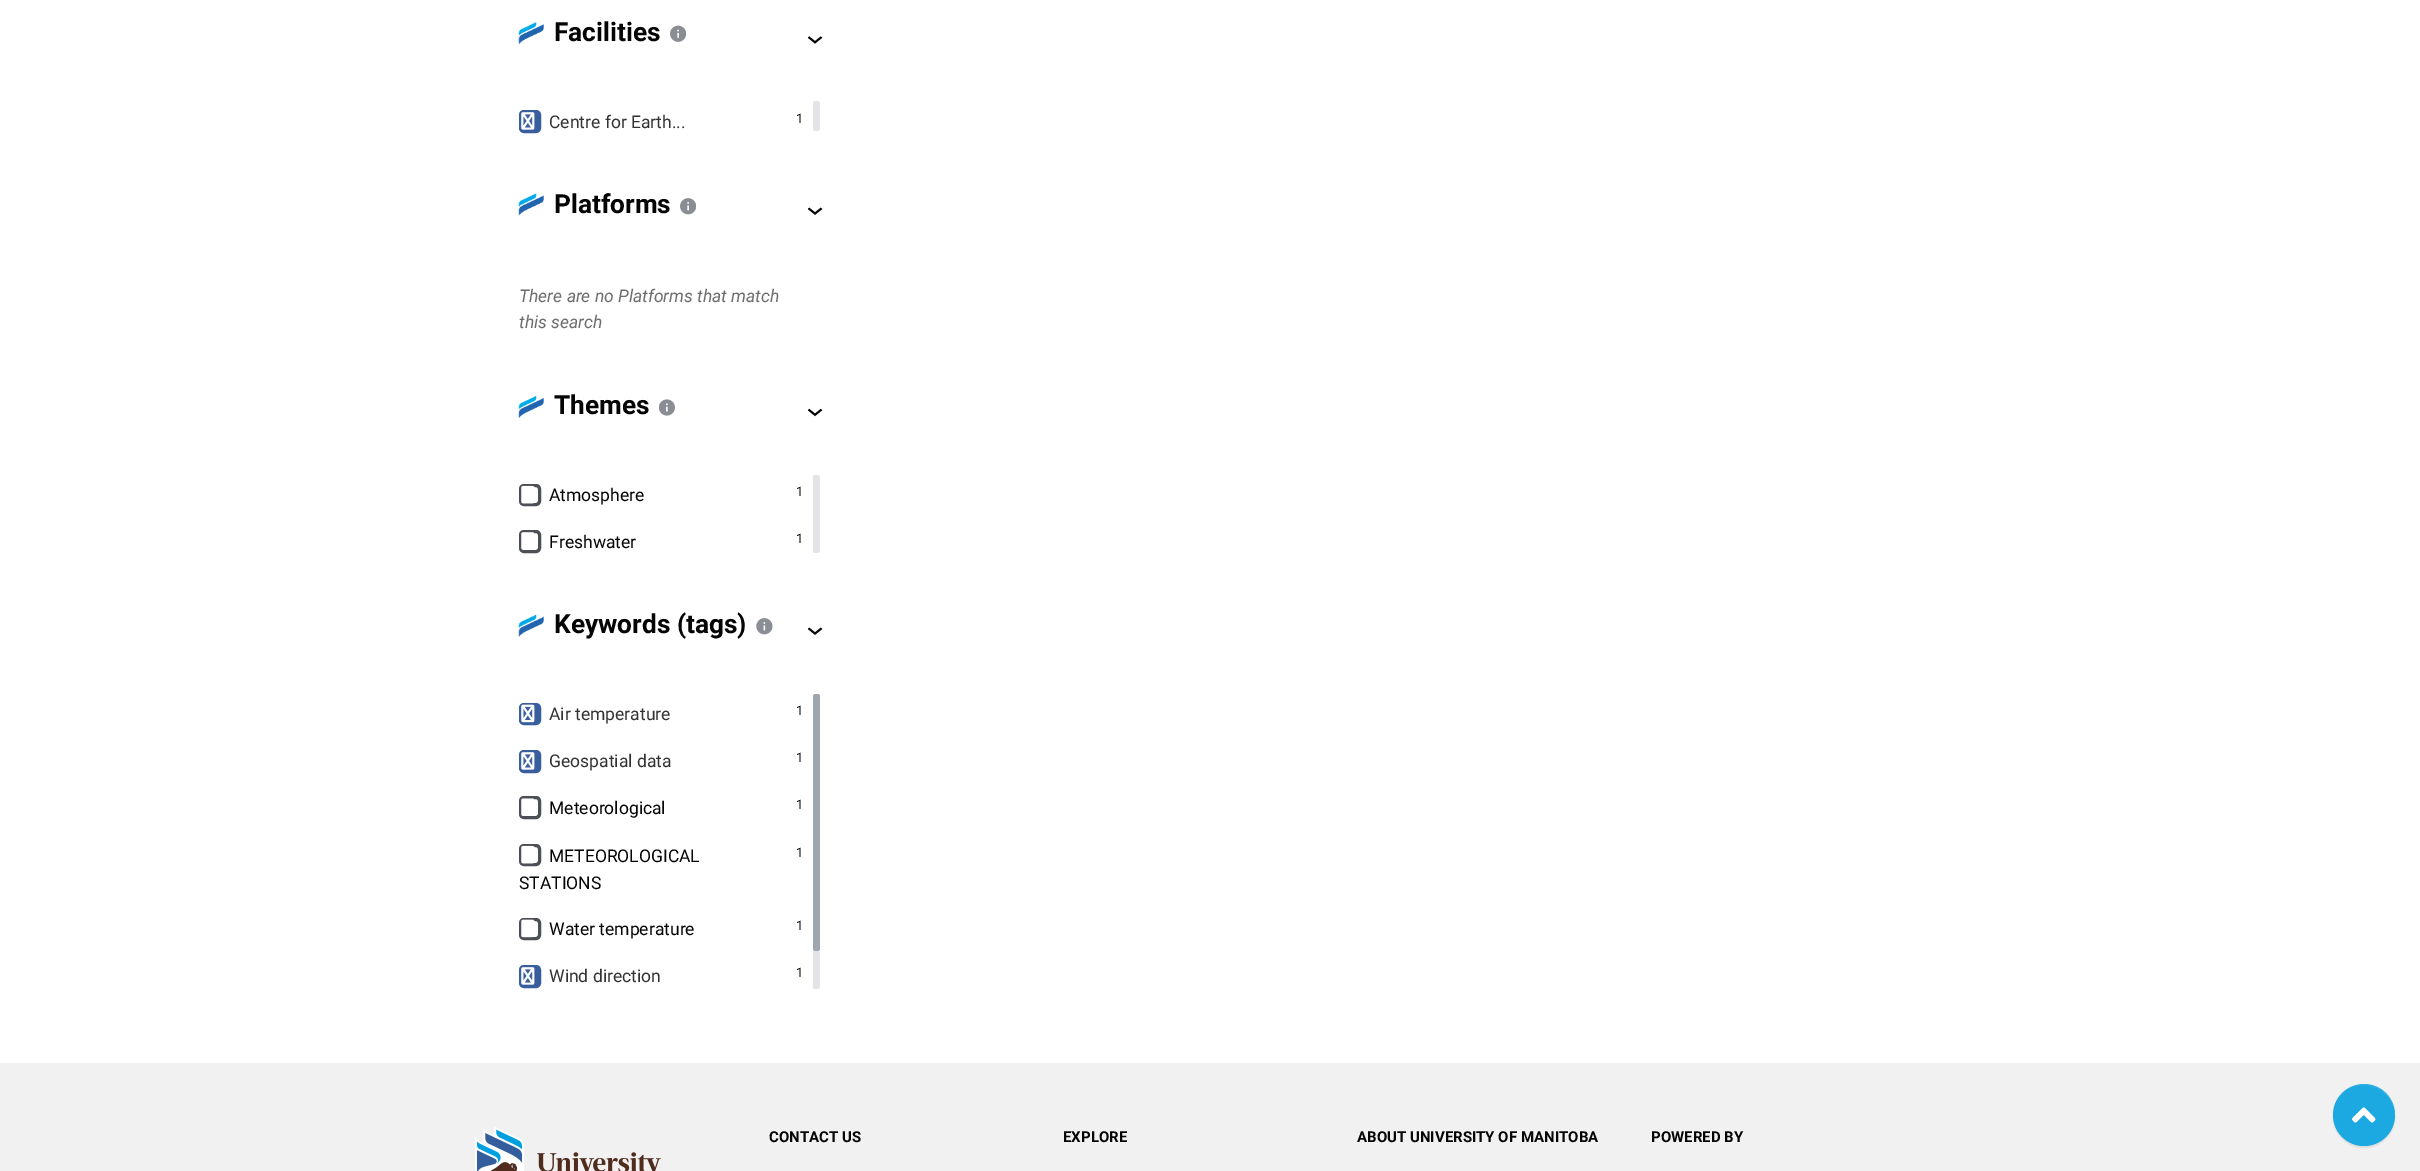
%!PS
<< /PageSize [2420 1171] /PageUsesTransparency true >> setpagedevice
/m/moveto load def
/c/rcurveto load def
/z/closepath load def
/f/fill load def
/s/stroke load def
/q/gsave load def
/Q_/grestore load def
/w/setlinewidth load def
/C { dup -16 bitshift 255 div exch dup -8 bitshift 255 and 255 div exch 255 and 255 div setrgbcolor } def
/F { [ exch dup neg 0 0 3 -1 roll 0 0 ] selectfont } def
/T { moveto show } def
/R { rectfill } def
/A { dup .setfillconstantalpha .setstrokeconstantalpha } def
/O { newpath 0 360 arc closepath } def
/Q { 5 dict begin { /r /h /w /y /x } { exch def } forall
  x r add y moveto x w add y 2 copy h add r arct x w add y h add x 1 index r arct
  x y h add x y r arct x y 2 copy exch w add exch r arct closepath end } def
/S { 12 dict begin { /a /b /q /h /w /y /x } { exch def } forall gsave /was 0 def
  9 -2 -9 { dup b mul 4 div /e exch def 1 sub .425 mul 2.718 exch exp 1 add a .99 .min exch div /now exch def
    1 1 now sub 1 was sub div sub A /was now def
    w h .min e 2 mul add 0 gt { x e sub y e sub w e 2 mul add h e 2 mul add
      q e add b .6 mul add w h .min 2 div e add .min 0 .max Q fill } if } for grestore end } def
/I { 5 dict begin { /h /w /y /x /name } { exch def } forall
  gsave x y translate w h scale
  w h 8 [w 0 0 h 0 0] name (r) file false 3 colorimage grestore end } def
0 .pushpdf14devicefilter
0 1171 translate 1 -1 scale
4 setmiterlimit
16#F1F1F1 C
0 0 2420 1171 R
16#FFFFFF C
0 0 2420 1063 R
(1.rgb) 518 22 26 23 I
/Roboto-Bold 26.25 F
16#050505 C
(Facilities) 554 41 T
(2.rgb) 670 25 16 17 I
(3.rgb) 808 36 15 8 I
16#385E9D C
520.5 111.5 19 20 3.5 Q q f Q_
3 w
s
(4.rgb) 521 112 14 18 I
/Roboto-Regular 17.5 F
16#333333 C
(Centre for Earth...) 549 128 T
/Roboto-Regular 13 F
16#050505 C
(1) 796 123 T
16#E3E4E7 C
813 101 7 30 2.5 Q f
(5.rgb) 518 193 26 23 I
/Roboto-Bold 26.25 F
16#050505 C
(Platforms) 554 213 T
(6.rgb) 680 198 16 17 I
(7.rgb) 808 207 15 8 I
/Roboto-Italic 17.5 F
16#6E6E6E C
(There are no Platforms that match) 519 302 T
(this search) 519 328 T
(8.rgb) 518 395 26 24 I
/Roboto-Bold 26.25 F
16#050505 C
(Themes) 554 414 T
(9.rgb) 659 399 16 17 I
(10.rgb) 808 408 15 9 I
16#4C4F55 C
520.5 485.5 19 19 3.5 Q s
(11.rgb) 521 485 14 19 I
/Roboto-Regular 17.5 F
16#050505 C
(Atmosphere) 549 501 T
/Roboto-Regular 13 F
(1) 796 496 T
16#4C4F55 C
520.5 531.5 19 20 3.5 Q s
(12.rgb) 521 532 13 18 I
/Roboto-Regular 17.5 F
16#050505 C
(Freshwater) 549 548 T
/Roboto-Regular 13 F
(1) 796 543 T
16#E3E4E7 C
813 475 7 78 2.5 Q f
(13.rgb) 518 614 26 23 I
/Roboto-Bold 26.25 F
16#050505 C
(Keywords \(tags\)) 554 633 T
(14.rgb) 756 618 17 17 I
(7.rgb) 808 627 15 8 I
16#385E9D C
520.5 704.5 19 19 3.5 Q q f Q_
s
(15.rgb) 521 704 14 19 I
/Roboto-Regular 17.5 F
16#333333 C
(Air temperature) 549 720 T
/Roboto-Regular 13 F
16#050505 C
(1) 796 715 T
16#385E9D C
520.5 751.5 19 20 3.5 Q q f Q_
s
(4.rgb) 521 752 14 18 I
/Roboto-Regular 17.5 F
16#333333 C
(Geospatial data) 549 767 T
/Roboto-Regular 13 F
16#050505 C
(1) 796 762 T
16#4C4F55 C
520.5 797.5 19 20 3.5 Q s
(16.rgb) 521 798 13 18 I
/Roboto-Regular 17.5 F
16#050505 C
(Meteorological) 549 814 T
/Roboto-Regular 13 F
(1) 796 809 T
16#4C4F55 C
520.5 845.5 19 19 3.5 Q s
(11.rgb) 521 845 14 19 I
/Roboto-Regular 17.5 F
16#050505 C
(METEOROLOGICAL) 549 862 T
(STATIONS) 519 889 T
/Roboto-Regular 13 F
(1) 796 857 T
16#4C4F55 C
520.5 919.5 19 19 3.5 Q s
(17.rgb) 521 919 14 19 I
/Roboto-Regular 17.5 F
16#050505 C
(Water temperature) 549 935 T
/Roboto-Regular 13 F
(1) 796 930 T
16#385E9D C
520.5 966.5 19 20 3.5 Q q f Q_
s
(4.rgb) 521 967 14 18 I
/Roboto-Regular 17.5 F
16#333333 C
(Wind direction) 549 982 T
/Roboto-Regular 13 F
16#050505 C
(1) 796 977 T
16#E3E4E7 C
813 694 7 295 2.5 Q f
16#A0A5AE C
813 694 7 257 2.5 Q f
(18.rgb) 475 1126 186 45 I
/Roboto-Bold 15 F
16#050505 C
(CONTACT US) 769 1142 T
(EXPLORE) 1063 1142 T
(ABOUT UNIVERSITY OF MANITOBA) 1357 1142 T
(POWERED BY) 1651 1142 T
16#000000 C
2333 1085 62 63 31 .5 .07 S
16#1CA8E1 C
2364 1115 31 O f
0.15 A
16#FFFFFF C
2364 1085 m 17 0 31 14 31 31 c 0 -30 -37 -43 -55 -20 c 5 -7 14 -11 24 -11 c z f
1 A
(19.rgb) 2352 1107 24 16 I
.poppdf14devicefilter showpage
